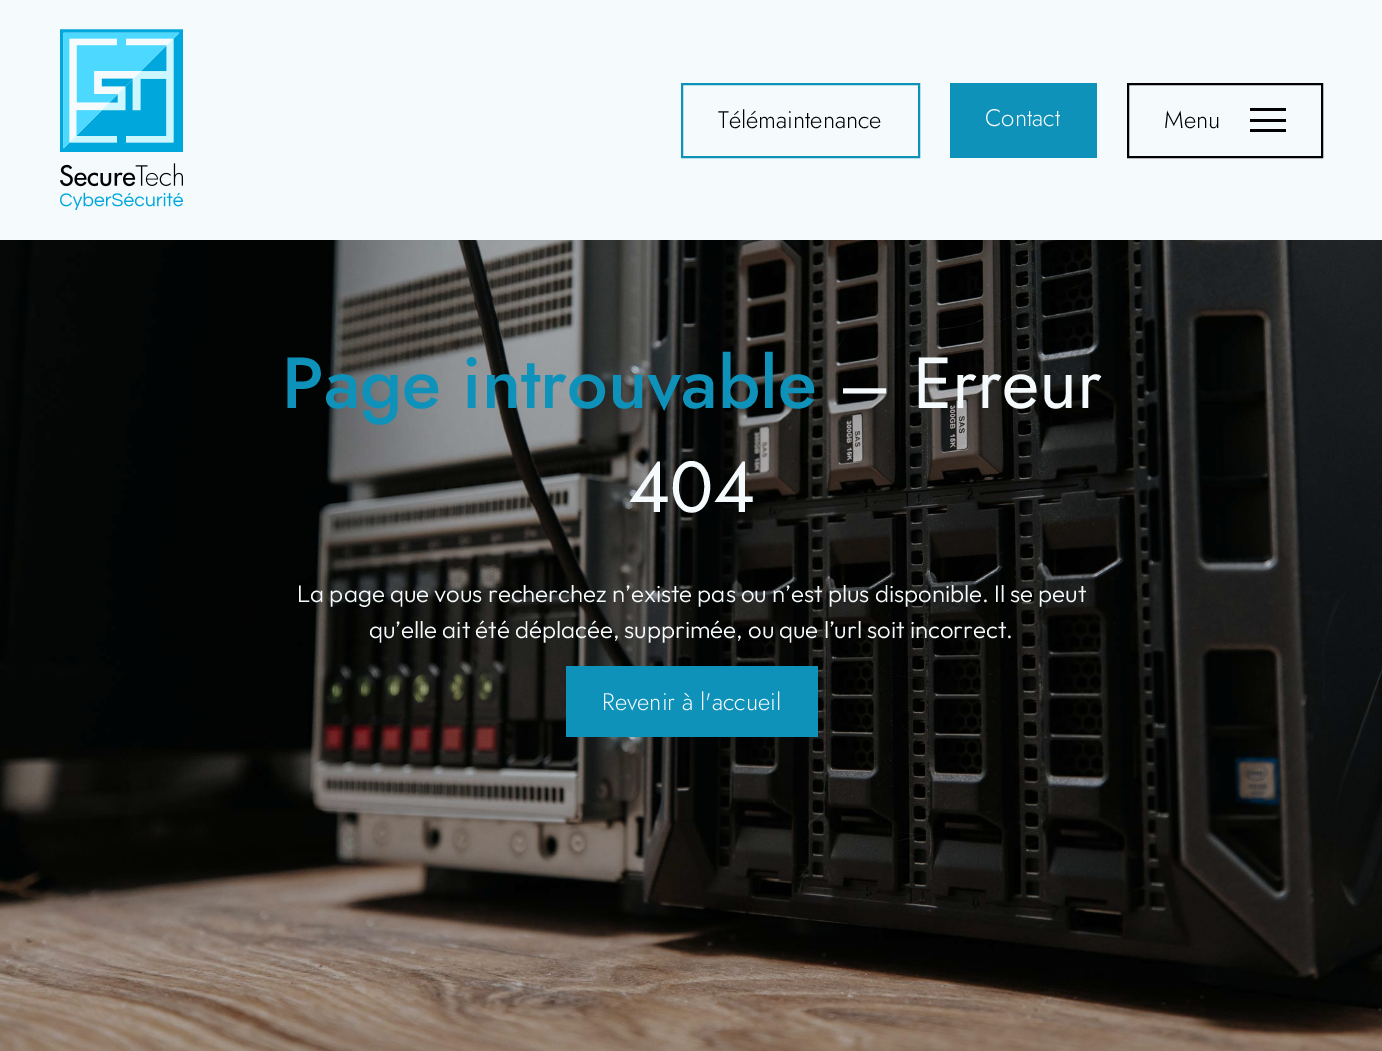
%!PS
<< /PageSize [1382 1051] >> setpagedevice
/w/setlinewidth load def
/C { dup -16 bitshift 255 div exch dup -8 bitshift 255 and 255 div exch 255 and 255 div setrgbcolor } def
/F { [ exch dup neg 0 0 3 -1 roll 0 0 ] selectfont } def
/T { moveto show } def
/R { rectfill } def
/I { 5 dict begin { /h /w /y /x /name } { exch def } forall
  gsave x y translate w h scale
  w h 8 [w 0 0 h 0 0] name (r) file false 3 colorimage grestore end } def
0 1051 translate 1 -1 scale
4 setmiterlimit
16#FFFFFF C
0 0 1382 1051 R
16#F5FBFC C
0 0 1382 240 R
(1.rgb) 60 29 123 181 I
16#0F92BA C
2 w
682 84 237 73 rectstroke
/Jost-Light 24 F
16#010103 C
(Télémaintenance) 718 128 T
16#0F92BA C
950 83 147 75 R
16#F5FBFC C
(Contact) 985 126 T
16#010103 C
1128 84 194 73 rectstroke
(Menu) 1164 128 T
1250 119 36 3 R
1250 108 36 3 R
1250 129 36 3 R
(2.rgb) 0 240 1382 811 I
/Jost-Medium 72 F
16#0F92BA C
(Page introuvable) 282 408 T
/Jost-Regular 72 F
16#F5FBFC C
(– Erreur) 838 408 T
(404) 628 512 T
/Outfit-Light 24 F
(La page que vous recherchez n’existe pas ou n’est plus disponible. Il se peut) 297 602 T
(qu’elle ait été déplacée, supprimée, ou que l’url soit incorrect.) 369 638 T
16#0F92BA C
566 666 252 71 R
/Jost-Light 24 F
16#F5FBFC C
(Revenir à l'accueil) 602 710 T
showpage
